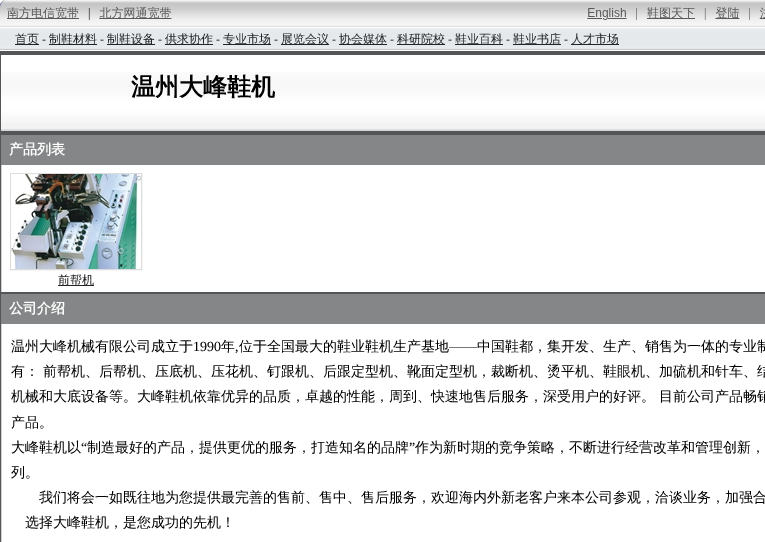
%!PS
<< /PageSize [765 542] >> setpagedevice
/C { dup -16 bitshift 255 div exch dup -8 bitshift 255 and 255 div exch 255 and 255 div setrgbcolor } def
/F { [ exch dup neg 0 0 3 -1 roll 0 0 ] selectfont } def
/T { moveto show } def
/R { rectfill } def
/I { 5 dict begin { /h /w /y /x /name } { exch def } forall
  gsave x y translate w h scale
  w h 8 [w 0 0 h 0 0] name (r) file false 3 colorimage grestore end } def
0 542 translate 1 -1 scale
4 setmiterlimit
16#FFFFFF C
0 0 765 542 R
(1.rgb) 0 0 765 27 I
(2.rgb) 0 28 765 22 I
16#222425 C
15 44 24 1 R
/WenQuanYiZenHei-Medium 12 F
(首页) 15 43 T
/LiberationSerif-Regular 12 F
16#000000 C
(-) 42 43 T
16#222425 C
49 44 48 1 R
/WenQuanYiZenHei-Medium 12 F
(制鞋材料) 49 43 T
/LiberationSerif-Regular 12 F
16#000000 C
(-) 100 43 T
16#222425 C
107 44 48 1 R
/WenQuanYiZenHei-Medium 12 F
(制鞋设备) 107 43 T
/LiberationSerif-Regular 12 F
16#000000 C
(-) 158 43 T
16#222425 C
165 44 48 1 R
/WenQuanYiZenHei-Medium 12 F
(供求协作) 165 43 T
/LiberationSerif-Regular 12 F
16#000000 C
(-) 216 43 T
16#222425 C
223 44 48 1 R
/WenQuanYiZenHei-Medium 12 F
(专业市场) 223 43 T
/LiberationSerif-Regular 12 F
16#000000 C
(-) 274 43 T
16#222425 C
281 44 48 1 R
/WenQuanYiZenHei-Medium 12 F
(展览会议) 281 43 T
/LiberationSerif-Regular 12 F
16#000000 C
(-) 332 43 T
16#222425 C
339 44 48 1 R
/WenQuanYiZenHei-Medium 12 F
(协会媒体) 339 43 T
/LiberationSerif-Regular 12 F
16#000000 C
(-) 390 43 T
16#222425 C
397 44 48 1 R
/WenQuanYiZenHei-Medium 12 F
(科研院校) 397 43 T
/LiberationSerif-Regular 12 F
16#000000 C
(-) 448 43 T
16#222425 C
455 44 48 1 R
/WenQuanYiZenHei-Medium 12 F
(鞋业百科) 455 43 T
/LiberationSerif-Regular 12 F
16#000000 C
(-) 506 43 T
16#222425 C
513 44 48 1 R
/WenQuanYiZenHei-Medium 12 F
(鞋业书店) 513 43 T
/LiberationSerif-Regular 12 F
16#000000 C
(-) 564 43 T
16#222425 C
571 44 48 1 R
/WenQuanYiZenHei-Medium 12 F
(人才市场) 571 43 T
(3.rgb) 1 72 764 59 I
16#545556 C
0 51 765 4 R
0 131 765 3 R
0 51 1 83 R
/WenQuanYiZenHei-Bold 24 F
16#000000 C
(温州大峰鞋机) 131 95 T
16#545556 C
.5 134.5 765 158 rectstroke
16#848687 C
1 135 764 30 R
/WenQuanYiZenHei-Bold 14 F
16#FFFFFF C
(产品列表) 9 154 T
16#DDDDDD C
10.5 173.5 131 96 rectstroke
(4.rgb) 11 174 130 95 I
16#222425 C
58 285 36 1 R
/WenQuanYiZenHei-Medium 12 F
(前帮机) 58 284 T
16#545556 C
.5 293.5 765 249 rectstroke
16#848687 C
1 294 764 30 R
/WenQuanYiZenHei-Bold 14 F
16#FFFFFF C
(公司介绍) 9 313 T
/WenQuanYiZenHei-Medium 14 F
16#000000 C
(温州大峰机械有限公司成立于) 11 351 T
/LiberationSerif-Regular 14 F
(1990) 193 351 T
/WenQuanYiZenHei-Medium 14 F
(年) 221 351 T
(位于全国最大的鞋业鞋机生产基地) 239 351 T
/LiberationSerif-Regular 14 F
(――) 449 351 T
/WenQuanYiZenHei-Medium 14 F
(中国鞋都，集开发、生产、销售为一体的专业制) 477 351 T
/LiberationSerif-Regular 14 F
(,) 235 351 T
/WenQuanYiZenHei-Medium 14 F
(有：) 11 376 T
(前帮机、后帮机、压底机、压花机、钉跟机、后跟定型机、靴面定型机，裁断机、烫平机、鞋眼机、加硫机和针车、结) 43 376 T
(机械和大底设备等。大峰鞋机依靠优异的品质，卓越的性能，周到、快速地售后服务，深受用户的好评。) 11 401 T
(目前公司产品畅销) 659 401 T
(产品。) 11 427 T
(大峰鞋机以) 11 452 T
/LiberationSerif-Regular 14 F
(“) 81 452 T
/WenQuanYiZenHei-Medium 14 F
(制造最好的产品，提供更优的服务，打造知名的品牌) 87 452 T
/LiberationSerif-Regular 14 F
(”) 409 452 T
/WenQuanYiZenHei-Medium 14 F
(作为新时期的竞争策略，不断进行经营改革和管理创新，) 415 452 T
(列。) 11 477 T
(我们将会一如既往地为您提供最完善的售前、售中、售后服务，欢迎海内外新老客户来本公司参观，洽谈业务，加强合) 39 502 T
(选择大峰鞋机，是您成功的先机！) 25 527 T
showpage
